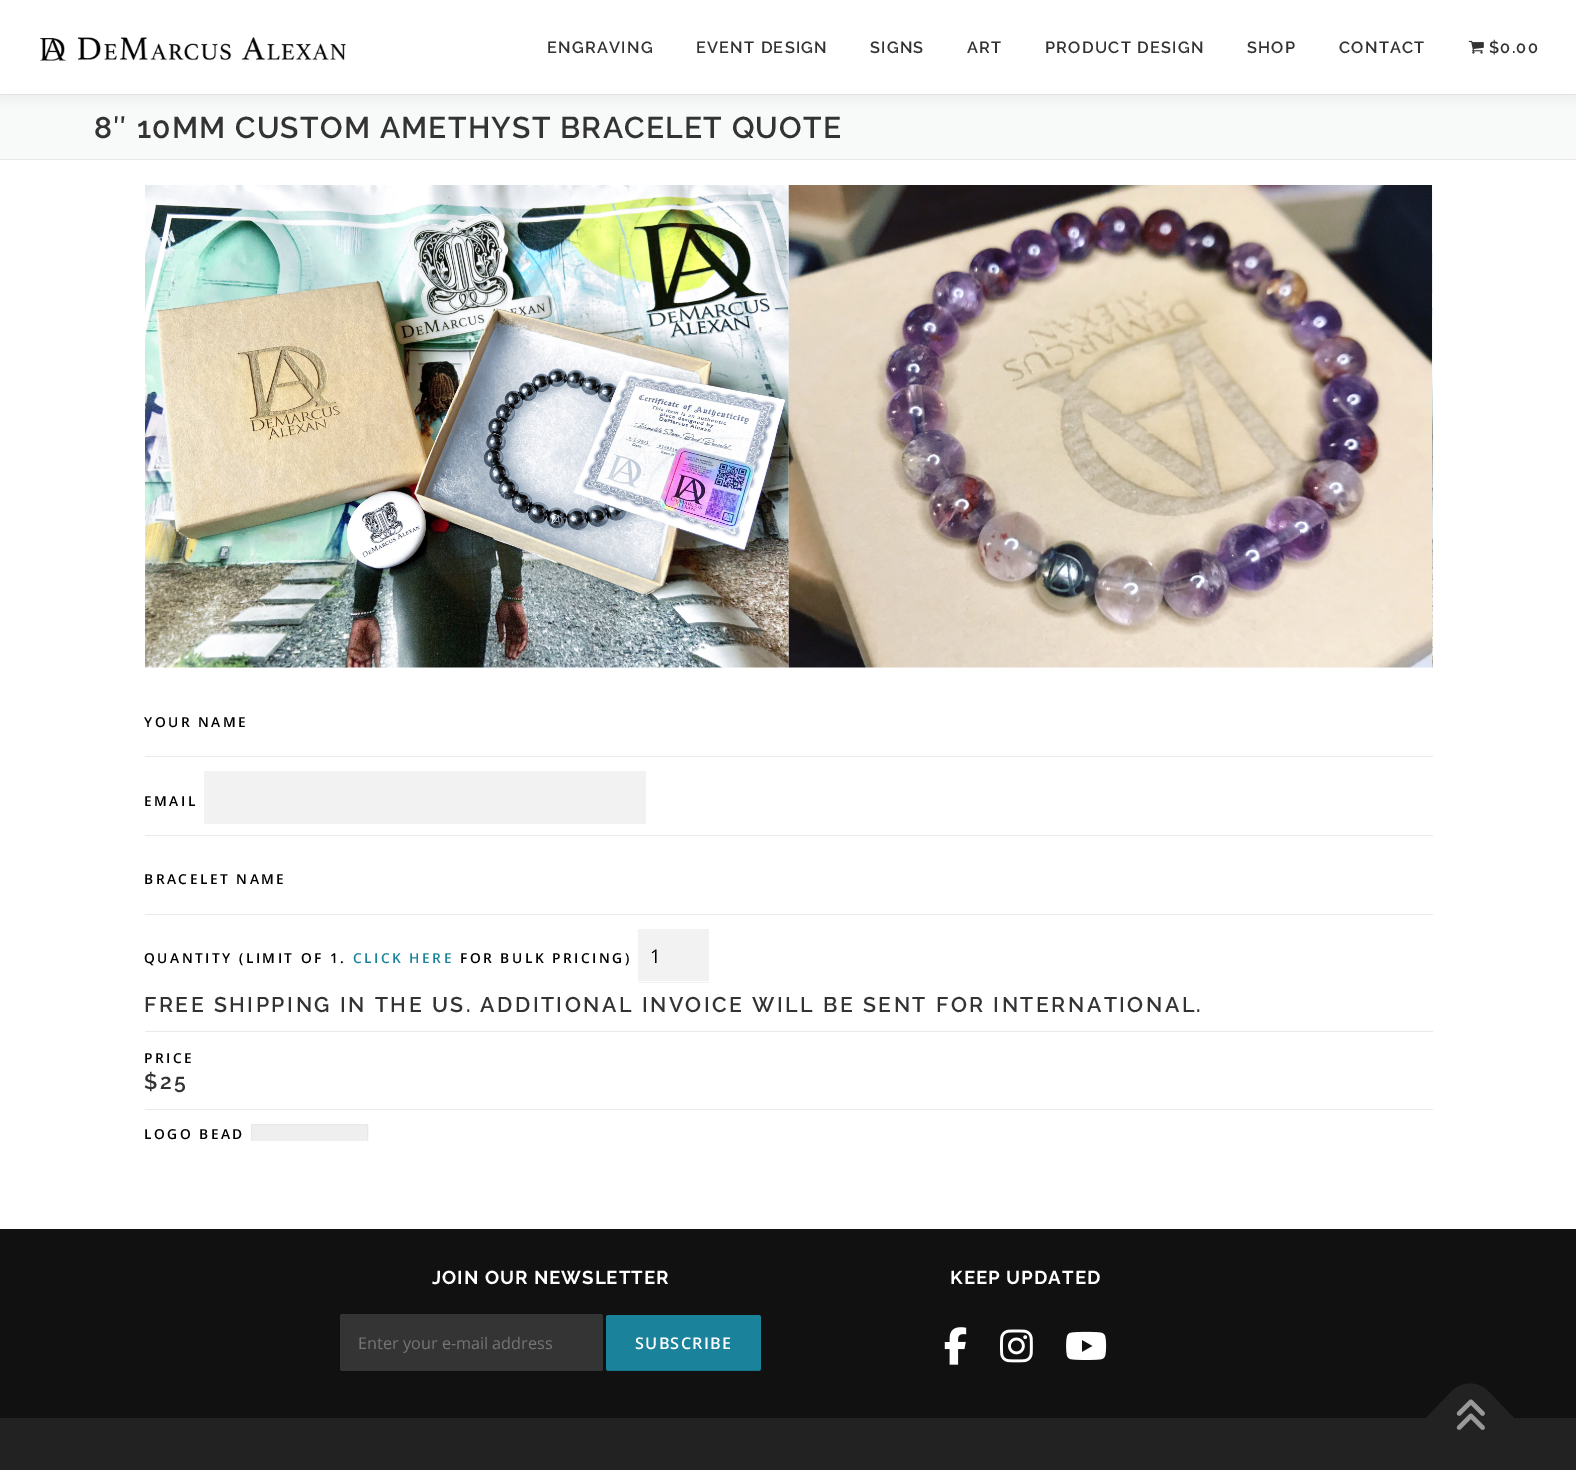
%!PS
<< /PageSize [1576 1470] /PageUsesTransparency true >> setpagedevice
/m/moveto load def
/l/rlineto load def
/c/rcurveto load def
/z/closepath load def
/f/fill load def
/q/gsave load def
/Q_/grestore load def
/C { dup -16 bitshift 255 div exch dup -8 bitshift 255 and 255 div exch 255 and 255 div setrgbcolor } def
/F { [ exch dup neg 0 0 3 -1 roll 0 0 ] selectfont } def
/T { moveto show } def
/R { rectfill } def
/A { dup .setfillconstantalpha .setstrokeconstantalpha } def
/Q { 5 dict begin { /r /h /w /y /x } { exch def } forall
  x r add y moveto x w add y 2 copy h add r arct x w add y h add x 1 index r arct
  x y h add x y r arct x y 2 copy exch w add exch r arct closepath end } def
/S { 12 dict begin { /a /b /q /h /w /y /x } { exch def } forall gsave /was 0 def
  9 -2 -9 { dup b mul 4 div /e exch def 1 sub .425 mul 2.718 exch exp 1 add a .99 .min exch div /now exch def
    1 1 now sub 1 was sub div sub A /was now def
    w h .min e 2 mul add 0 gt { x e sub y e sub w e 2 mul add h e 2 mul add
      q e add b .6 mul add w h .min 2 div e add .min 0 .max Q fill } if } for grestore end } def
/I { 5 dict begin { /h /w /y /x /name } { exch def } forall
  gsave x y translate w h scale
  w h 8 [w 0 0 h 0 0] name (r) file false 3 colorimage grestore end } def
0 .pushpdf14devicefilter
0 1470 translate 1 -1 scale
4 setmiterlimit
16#FFFFFF C
0 0 1576 1470 R
16#F8F9F9 C
0 95 1576 64 R
16#E9E9E9 C
0 94 1576 1 R
16#323232 C
0 6 1576 94 0 6 .06 S
16#FFFFFF C
0 1 1576 93 R
(1.rgb) 39 37 308 24 I
/Raleway-SemiBold 16.25 F
16#333333 C
547 53 m 1.25 0 (ENGRAVING) ashow
696 53 m 1.25 0 (EVENT DESIGN) ashow
870 53 m 1.25 0 (SIGNS) ashow
967 53 m 1.25 0 (ART) ashow
1045 53 m 1.25 0 (PRODUCT DESIGN) ashow
1247 53 m 1.25 0 (SHOP) ashow
1339 53 m 1.25 0 (CONTACT) ashow
(2.rgb) 1468 40 16 14 I
1489 53 m 1.25 0 ($0.00) ashow
16#E9E9E9 C
0 159 1576 1 R
/Raleway-SemiBold 30 F
16#333333 C
94 138 m 1.25 0 (8″ 10MM CUSTOM AMETHYST BRACELET QUOTE) ashow
(3.rgb) 145 185 644 483 I
(4.rgb) 788 185 645 483 I
/OpenSans-SemiBold 13.75 F
16#000000 C
144 727 m 2.5 0 (YOUR NAME) ashow
16#E9E9E9 C
145 756 1288 1 R
16#000000 C
144 806 m 2.5 0 (EMAIL) ashow
16#F2F2F2 C
204 771 442 53 R
16#E9E9E9 C
145 835 1288 1 R
16#000000 C
144 884 m 2.5 0 (BRACELET NAME) ashow
16#E9E9E9 C
145 914 1288 1 R
16#000000 C
144 963 m 2.5 0 (QUANTITY \(LIMIT OF 1.) ashow
16#1B829B C
353 963 m 2.5 0 (CLICK HERE) ashow
16#000000 C
460 963 m 2.5 0 (FOR BULK PRICING\)) ashow
16#F2F2F2 C
638 929 71 54 R
16#FFFFFF C
638 981 71 1 R
/OpenSans-Regular 18.75 F
16#000000 C
(1) 650 963 T
/Raleway-SemiBold 21.25 F
16#333333 C
144 1012 m 2.5 0 (FREE SHIPPING IN THE US. ADDITIONAL INVOICE WILL BE SENT FOR INTERNATIONAL.) ashow
16#E9E9E9 C
145 1031 1288 1 R
/OpenSans-SemiBold 13.75 F
16#000000 C
144 1063 m 2.5 0 (PRICE) ashow
/Raleway-SemiBold 21.25 F
16#333333 C
144 1089 m 2.5 0 ($25) ashow
16#E9E9E9 C
145 1109 1288 1 R
/OpenSans-SemiBold 13.75 F
16#000000 C
144 1139 m 2.5 0 (LOGO BEAD) ashow
16#EFEFEF C
252 1125 115 16 R
q
95 185 1388 956 rectclip
16#E9E9E9 C
251.5 1124.5 116 53 rectstroke
Q_
16#111111 C
0 1229 1576 189 R
/Raleway-Bold 18.75 F
16#FFFFFF C
432 1284 m 1 0 (JOIN OUR NEWSLETTER) ashow
16#343434 C
340 1314 263 57 2.5 Q f
/OpenSans-Regular 16.25 F
16#757575 C
(Enter your e-mail address) 358 1349 T
16#1B829B C
606 1315 155 56 2.5 Q f
0.1 A
16#000000 C
606 1368 m 0 2 1 3 2 3 c 150 0 l 2 0 3 -1 3 -3 c 0 1 -1 2 -2 2 c -150 0 l -2 0 -3 -1 -3 -2 c z f
/OpenSans-SemiBold 16.25 F
1 A
16#FFFFFF C
635 1349 m 1.25 0 (SUBSCRIBE) ashow
/Raleway-Bold 18.75 F
950 1284 m 1 0 (KEEP UPDATED) ashow
(5.rgb) 944 1327 23 38 I
(6.rgb) 1000 1329 33 34 I
(7.rgb) 1066 1331 41 29 I
16#222222 C
0 1418 1576 52 R
1426 1418 m 26 -27 l 10 -10 26 -10 36 0 c 26 27 l -44 44 l z f
(8.rgb) 1456 1399 29 31 I
.poppdf14devicefilter showpage
